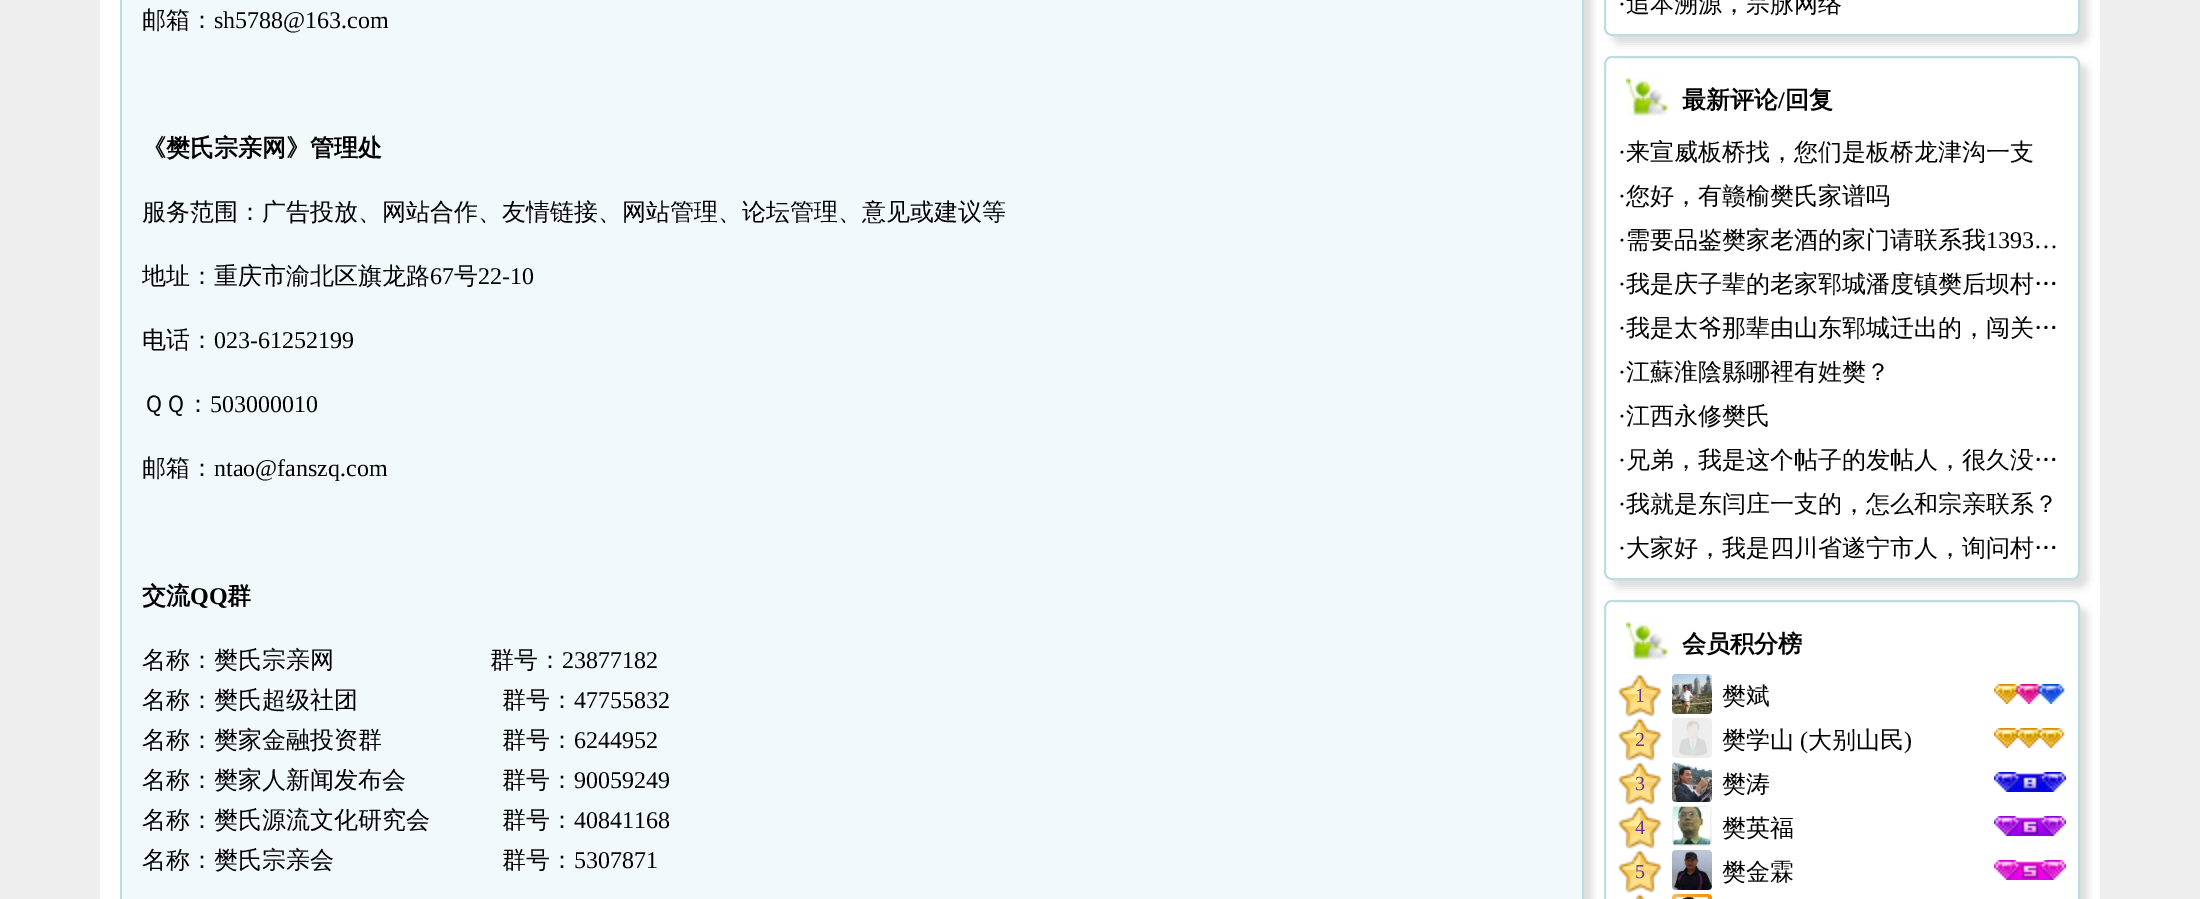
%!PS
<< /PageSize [2200 899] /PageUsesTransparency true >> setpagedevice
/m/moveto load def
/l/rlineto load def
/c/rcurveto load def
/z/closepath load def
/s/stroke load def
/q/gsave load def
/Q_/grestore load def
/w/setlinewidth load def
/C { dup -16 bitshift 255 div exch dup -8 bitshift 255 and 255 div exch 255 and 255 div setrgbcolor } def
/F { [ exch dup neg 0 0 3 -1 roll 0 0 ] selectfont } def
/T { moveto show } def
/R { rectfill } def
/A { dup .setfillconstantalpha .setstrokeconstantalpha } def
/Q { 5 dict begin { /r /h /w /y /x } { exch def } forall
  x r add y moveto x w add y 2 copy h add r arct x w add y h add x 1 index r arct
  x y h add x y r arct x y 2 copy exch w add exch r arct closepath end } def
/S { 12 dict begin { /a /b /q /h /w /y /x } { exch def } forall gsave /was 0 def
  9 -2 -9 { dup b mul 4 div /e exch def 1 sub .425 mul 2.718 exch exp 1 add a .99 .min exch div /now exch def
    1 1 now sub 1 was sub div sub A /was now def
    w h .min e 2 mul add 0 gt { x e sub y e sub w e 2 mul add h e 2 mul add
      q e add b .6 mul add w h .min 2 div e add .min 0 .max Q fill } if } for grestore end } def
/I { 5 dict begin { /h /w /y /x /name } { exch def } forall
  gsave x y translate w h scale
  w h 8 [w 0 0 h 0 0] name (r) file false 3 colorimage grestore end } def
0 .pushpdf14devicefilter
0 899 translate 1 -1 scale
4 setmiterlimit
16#EEEEEE C
0 0 2200 899 R
16#FFFFFF C
100 0 2000 899 R
16#DDDDDD C
128 -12 1464 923 0 4 1 S
16#F2F9FA C
122 0 1460 899 R
16#BFDCE1 C
1582 0 2 899 R
120 0 2 899 R
/WenQuanYiZenHei-Medium 24 F
16#000000 C
(邮箱：) 142 28 T
/LiberationSerif-Regular 24 F
(sh5788@163.com) 214 28 T
/WenQuanYiZenHei-Bold 24 F
(《樊氏宗亲网》管理处) 142 156 T
/WenQuanYiZenHei-Medium 24 F
(服务范围：广告投放、网站合作、友情链接、网站管理、论坛管理、意见或建议等) 142 220 T
(地址：重庆市渝北区旗龙路) 142 284 T
/LiberationSerif-Regular 24 F
(67) 430 284 T
/WenQuanYiZenHei-Medium 24 F
(号) 454 284 T
/LiberationSerif-Regular 24 F
(22-10) 478 284 T
/WenQuanYiZenHei-Medium 24 F
(电话：) 142 348 T
/LiberationSerif-Regular 24 F
(023-61252199) 214 348 T
/WenQuanYiZenHei-Medium 24 F
(ＱＱ：) 142 412 T
/LiberationSerif-Regular 24 F
(503000010) 210 412 T
/WenQuanYiZenHei-Medium 24 F
(邮箱：) 142 476 T
/LiberationSerif-Regular 24 F
(ntao@fanszq.com) 214 476 T
/WenQuanYiZenHei-Bold 24 F
(交流) 142 604 T
/LiberationSerif-Bold 24 F
(QQ) 190 604 T
/WenQuanYiZenHei-Bold 24 F
(群) 227 604 T
/WenQuanYiZenHei-Medium 24 F
(名称：樊氏宗亲网) 142 668 T
(群号：) 490 668 T
/LiberationSerif-Regular 24 F
(23877182) 562 668 T
/WenQuanYiZenHei-Medium 24 F
(名称：樊氏超级社团　　　　　　群号：) 142 708 T
/LiberationSerif-Regular 24 F
(47755832) 574 708 T
/WenQuanYiZenHei-Medium 24 F
(名称：樊家金融投资群　　　　　群号：) 142 748 T
/LiberationSerif-Regular 24 F
(6244952) 574 748 T
/WenQuanYiZenHei-Medium 24 F
(名称：樊家人新闻发布会　　　　群号：) 142 788 T
/LiberationSerif-Regular 24 F
(90059249) 574 788 T
/WenQuanYiZenHei-Medium 24 F
(名称：樊氏源流文化研究会　　　群号：) 142 828 T
/LiberationSerif-Regular 24 F
(40841168) 574 828 T
/WenQuanYiZenHei-Medium 24 F
(名称：樊氏宗亲会　　　　　　　群号：) 142 868 T
/LiberationSerif-Regular 24 F
(5307871) 574 868 T
q
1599 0 m 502 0 l 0 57 l -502 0 l z 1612 -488 m 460 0 l 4.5 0 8 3.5 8 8 c 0 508 l 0 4.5 -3.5 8 -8 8 c -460 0 l -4.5 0 -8 -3.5 -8 -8 c 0 -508 l 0 -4.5 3.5 -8 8 -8 c z eoclip newpath
16#DDDDDD C
1612 -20 476 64 8 4 1 S
Q_
16#BFDCE1 C
2 w
1605 -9 474 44 7 Q s
16#000000 C
(·) 1618 12 T
/WenQuanYiZenHei-Medium 24 F
(追本溯源，宗脉网络) 1626 12 T
q
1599 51 m 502 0 l 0 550 l -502 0 l z 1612 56 m 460 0 l 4.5 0 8 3.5 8 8 c 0 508 l 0 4.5 -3.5 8 -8 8 c -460 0 l -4.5 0 -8 -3.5 -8 -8 c 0 -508 l 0 -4.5 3.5 -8 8 -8 c z eoclip newpath
16#DDDDDD C
1612 64 476 524 8 4 1 S
Q_
16#BFDCE1 C
1605 57 474 522 7 Q s
(1.rgb) 1626 78 42 38 I
/WenQuanYiZenHei-Bold 24 F
16#000000 C
(最新评论) 1682 108 T
/LiberationSerif-Bold 24 F
(/) 1778 108 T
/WenQuanYiZenHei-Bold 24 F
(回复) 1785 108 T
/LiberationSerif-Regular 24 F
(·) 1618 160 T
/WenQuanYiZenHei-Medium 24 F
(来宣威板桥找，您们是板桥龙津沟一支) 1626 160 T
/LiberationSerif-Regular 24 F
(·) 1618 204 T
/WenQuanYiZenHei-Medium 24 F
(您好，有赣榆樊氏家谱吗) 1626 204 T
/LiberationSerif-Regular 24 F
(·) 1618 248 T
/WenQuanYiZenHei-Medium 24 F
(需要品鉴樊家老酒的家门请联系我) 1626 248 T
/LiberationSerif-Regular 24 F
(1393…) 1986 248 T
(·) 1618 292 T
/WenQuanYiZenHei-Medium 24 F
(我是庆子辈的老家郓城潘度镇樊后坝村…) 1626 292 T
/LiberationSerif-Regular 24 F
(·) 1618 336 T
/WenQuanYiZenHei-Medium 24 F
(我是太爷那辈由山东郓城迁出的，闯关…) 1626 336 T
/LiberationSerif-Regular 24 F
(·) 1618 380 T
/WenQuanYiZenHei-Medium 24 F
(江蘇淮陰縣哪裡有姓樊？) 1626 380 T
/LiberationSerif-Regular 24 F
(·) 1618 424 T
/WenQuanYiZenHei-Medium 24 F
(江西永修樊氏) 1626 424 T
/LiberationSerif-Regular 24 F
(·) 1618 468 T
/WenQuanYiZenHei-Medium 24 F
(兄弟，我是这个帖子的发帖人，很久没…) 1626 468 T
/LiberationSerif-Regular 24 F
(·) 1618 512 T
/WenQuanYiZenHei-Medium 24 F
(我就是东闫庄一支的，怎么和宗亲联系？) 1626 512 T
/LiberationSerif-Regular 24 F
(·) 1618 556 T
/WenQuanYiZenHei-Medium 24 F
1626 556 m -1 0 32 (大家好，我是四川省遂宁市人，询问村…) widthshow
q
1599 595 m 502 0 l 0 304 l -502 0 l z 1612 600 m 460 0 l 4.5 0 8 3.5 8 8 c 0 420 l 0 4.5 -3.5 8 -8 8 c -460 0 l -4.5 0 -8 -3.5 -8 -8 c 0 -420 l 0 -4.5 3.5 -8 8 -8 c z eoclip newpath
16#DDDDDD C
1612 608 476 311 8 4 1 S
Q_
16#BFDCE1 C
1605 601 474 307 7 Q s
(1.rgb) 1626 622 42 38 I
/WenQuanYiZenHei-Bold 24 F
16#000000 C
(会员积分榜) 1682 652 T
(2.rgb) 1618 674 44 43 I
/LiberationSerif-Regular 20 F
16#663399 C
(1) 1635 702 T
(3.rgb) 1672 674 40 40 I
/WenQuanYiZenHei-Medium 24 F
16#000000 C
(樊斌) 1722 704 T
(4.rgb) 1994 684 71 20 I
(2.rgb) 1618 718 44 43 I
/LiberationSerif-Regular 20 F
16#663399 C
(2) 1635 746 T
(5.rgb) 1672 718 40 40 I
/WenQuanYiZenHei-Medium 24 F
16#000000 C
(樊学山) 1722 748 T
/LiberationSerif-Regular 24 F
(\() 1800 748 T
/WenQuanYiZenHei-Medium 24 F
(大别山民) 1808 748 T
/LiberationSerif-Regular 24 F
(\)) 1904 748 T
(6.rgb) 1994 728 71 20 I
(2.rgb) 1618 762 44 43 I
/LiberationSerif-Regular 20 F
16#663399 C
(3) 1635 790 T
(7.rgb) 1672 762 40 40 I
/WenQuanYiZenHei-Medium 24 F
16#000000 C
(樊涛) 1722 792 T
(8.rgb) 1994 772 72 20 I
(2.rgb) 1618 806 44 43 I
/LiberationSerif-Regular 20 F
16#663399 C
(4) 1635 834 T
(9.rgb) 1672 806 40 40 I
/WenQuanYiZenHei-Medium 24 F
16#000000 C
(樊英福) 1722 836 T
(10.rgb) 1994 816 72 20 I
(2.rgb) 1618 850 44 43 I
/LiberationSerif-Regular 20 F
16#663399 C
(5) 1635 878 T
(11.rgb) 1672 850 40 40 I
/WenQuanYiZenHei-Medium 24 F
16#000000 C
(樊金霖) 1722 880 T
(12.rgb) 1994 860 72 20 I
(13.rgb) 1635 894 10 5 I
(14.rgb) 1672 894 40 5 I
.poppdf14devicefilter showpage
